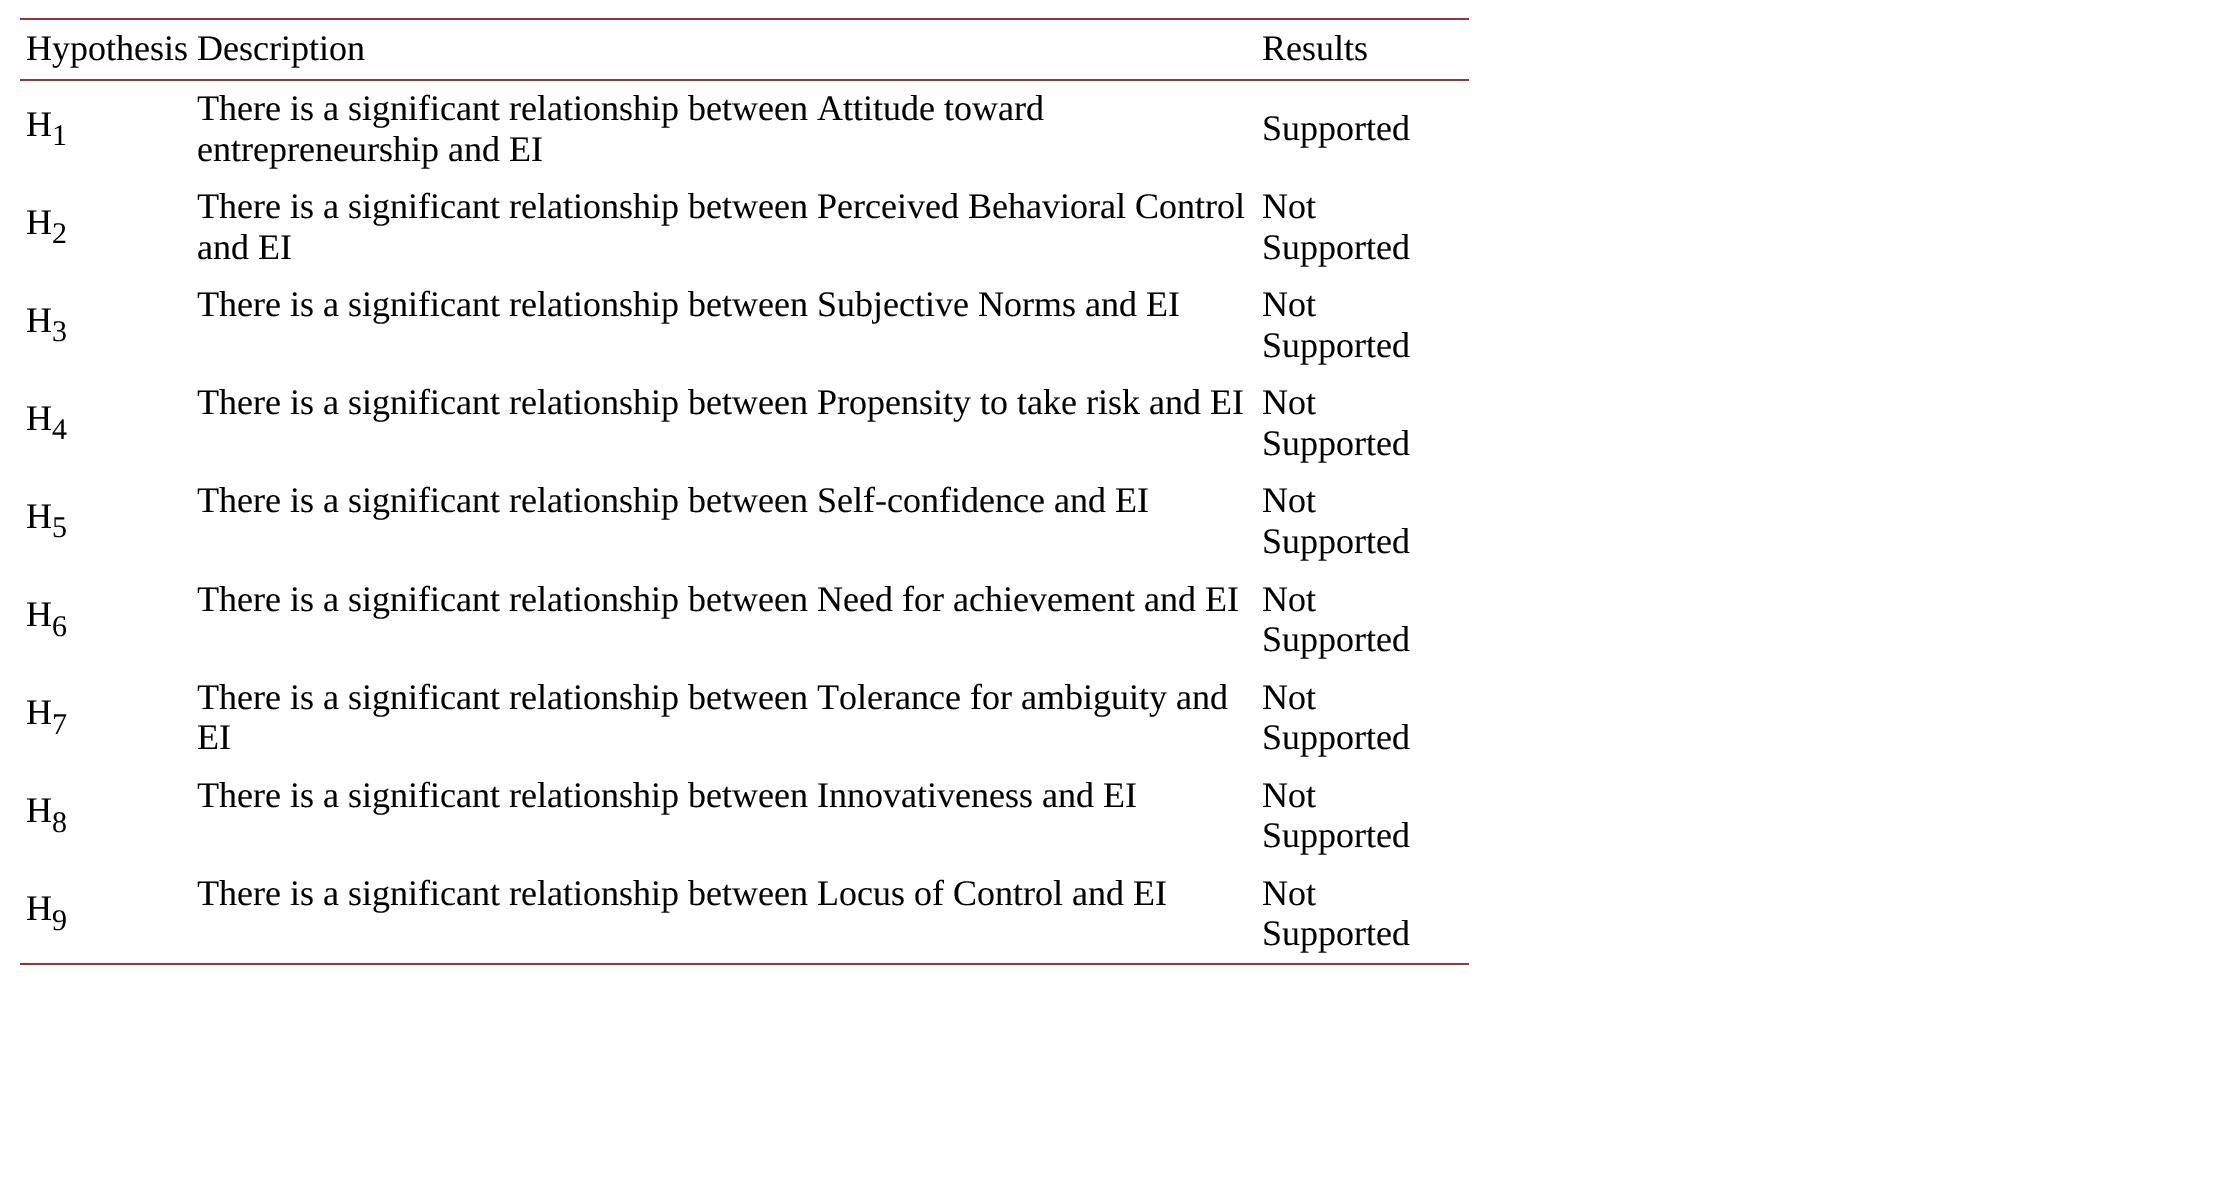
%!PS
<< /PageSize [2224 1187] >> setpagedevice
/C { dup -16 bitshift 255 div exch dup -8 bitshift 255 and 255 div exch 255 and 255 div setrgbcolor } def
/F { [ exch dup neg 0 0 3 -1 roll 0 0 ] selectfont } def
/T { moveto show } def
/R { rectfill } def
0 1187 translate 1 -1 scale
4 setmiterlimit
16#FFFFFF C
0 0 2224 1187 R
/LiberationSerif-Regular 36 F
16#000000 C
(Hypothesis) 26 60 T
(Description) 197 60 T
16#943634 C
20 18 1449 2 R
20 79 1449 2 R
16#000000 C
(Results) 1262 60 T
(H) 26 136 T
/LiberationSerif-Regular 30 F
(1) 52 145 T
/LiberationSerif-Regular 36 F
(There is a significant relationship between Attitude toward) 197 120 T
(entrepreneurship and EI) 197 161 T
(Supported) 1262 140 T
(H) 26 234 T
/LiberationSerif-Regular 30 F
(2) 52 243 T
/LiberationSerif-Regular 36 F
(There is a significant relationship between Perceived Behavioral Control) 197 218 T
(and EI) 197 259 T
(Not) 1262 218 T
(Supported) 1262 259 T
(H) 26 332 T
/LiberationSerif-Regular 30 F
(3) 52 341 T
/LiberationSerif-Regular 36 F
(There is a significant relationship between Subjective Norms and EI) 197 316 T
(Not) 1262 316 T
(Supported) 1262 357 T
(H) 26 430 T
/LiberationSerif-Regular 30 F
(4) 52 439 T
/LiberationSerif-Regular 36 F
(There is a significant relationship between Propensity to take risk and EI) 197 414 T
(Not) 1262 414 T
(Supported) 1262 455 T
(H) 26 528 T
/LiberationSerif-Regular 30 F
(5) 52 537 T
/LiberationSerif-Regular 36 F
(There is a significant relationship between Self-confidence and EI) 197 512 T
(Not) 1262 512 T
(Supported) 1262 553 T
(H) 26 626 T
/LiberationSerif-Regular 30 F
(6) 52 636 T
/LiberationSerif-Regular 36 F
(There is a significant relationship between Need for achievement and EI) 197 611 T
(Not) 1262 611 T
(Supported) 1262 651 T
(H) 26 724 T
/LiberationSerif-Regular 30 F
(7) 52 734 T
/LiberationSerif-Regular 36 F
(There is a significant relationship between Tolerance for ambiguity and) 197 709 T
(EI) 197 749 T
(Not) 1262 709 T
(Supported) 1262 749 T
(H) 26 822 T
/LiberationSerif-Regular 30 F
(8) 52 832 T
/LiberationSerif-Regular 36 F
(There is a significant relationship between Innovativeness and EI) 197 807 T
(Not) 1262 807 T
(Supported) 1262 847 T
(H) 26 920 T
/LiberationSerif-Regular 30 F
(9) 52 930 T
/LiberationSerif-Regular 36 F
(There is a significant relationship between Locus of Control and EI) 197 905 T
16#943634 C
20 963 1449 2 R
16#000000 C
(Not) 1262 905 T
(Supported) 1262 945 T
showpage
